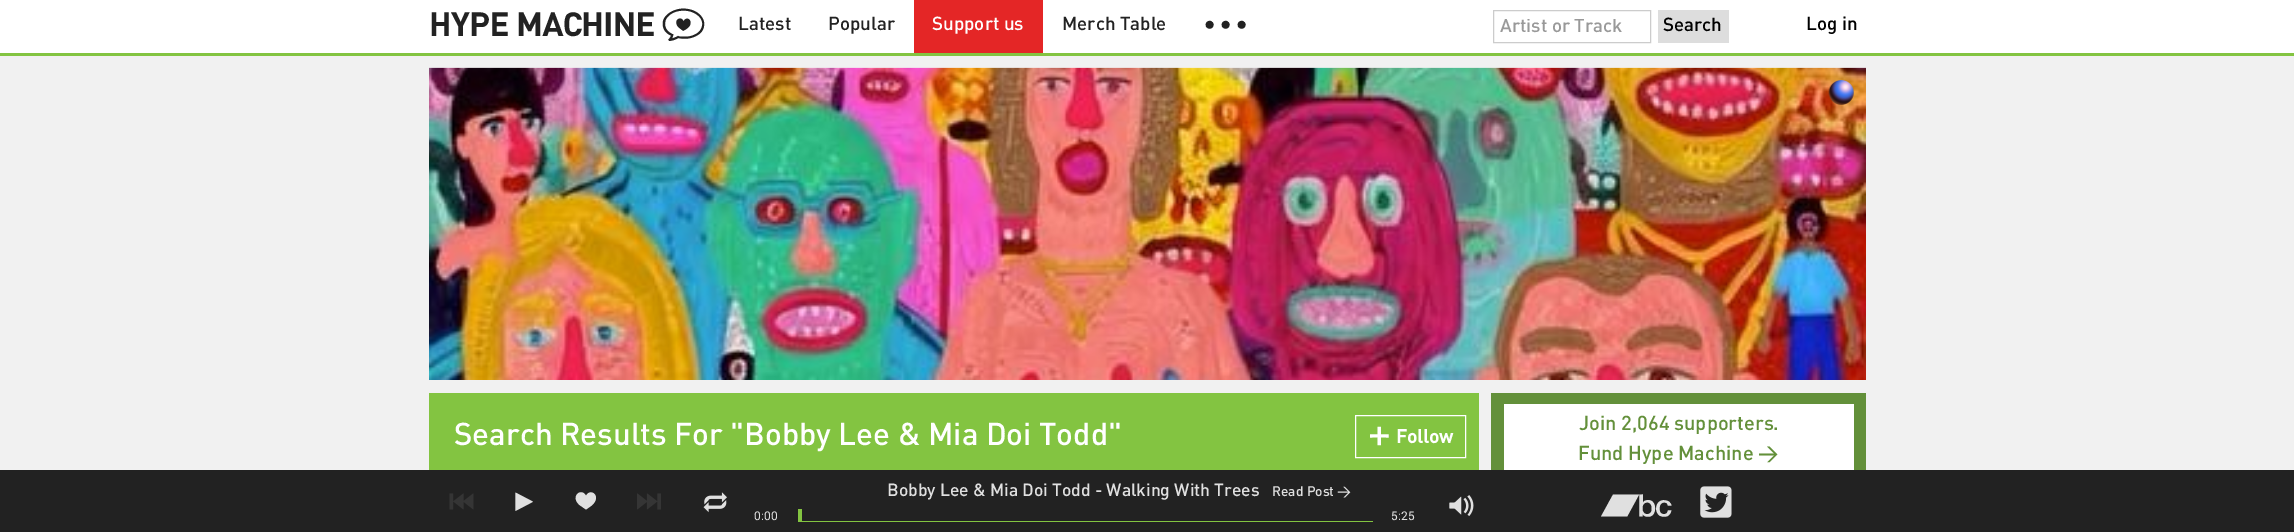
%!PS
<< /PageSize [2294 532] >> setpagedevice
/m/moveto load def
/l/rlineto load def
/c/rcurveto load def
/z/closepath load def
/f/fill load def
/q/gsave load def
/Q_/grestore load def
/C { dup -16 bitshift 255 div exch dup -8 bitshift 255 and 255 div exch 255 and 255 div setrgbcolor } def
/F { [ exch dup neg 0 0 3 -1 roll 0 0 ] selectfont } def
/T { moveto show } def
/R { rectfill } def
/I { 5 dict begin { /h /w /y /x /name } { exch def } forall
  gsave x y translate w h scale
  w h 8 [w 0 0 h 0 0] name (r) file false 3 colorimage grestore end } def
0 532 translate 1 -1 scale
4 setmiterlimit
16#F1F1F1 C
0 0 2294 532 R
16#FFFFFF C
0 0 2294 53 R
16#83C441 C
0 53 2294 3 R
/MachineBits-Regular 47.5 F
16#222222 C
(1) 429 35 T
/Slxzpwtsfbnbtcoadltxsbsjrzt-Medium 18.75 F
(Latest) 738 30 T
(Popular) 828 30 T
16#E42626 C
914 0 129 53 R
16#FFFFFF C
(Support us) 932 30 T
16#222222 C
(Merch Table) 1062 30 T
/LiberationSerif-Bold 18.75 F
(● ● ●) 1204 30 T
16#CCCCCC C
1493.5 10.5 157 32 rectstroke
q
1500 19 150 19 rectclip
/Slxzpwtsfbnbtcoadltxsbsjrzt-Medium 18.75 F
16#999999 C
(Artist or Track) 1500 32 T
Q_
16#DDDDDD C
1658 10 71 33 R
/Slxzpwtsfbnbtcoadltxsbsjrzt-Medium 18.75 F
16#000000 C
(Search) 1663 31 T
(Log in) 1806 30 T
(1.rgb) 429 67 1437 313 I
16#83C441 C
429 393 1050 77 R
/Slxzpwtsfbnbtcoadltxsbsjrzt-Medium 31.25 F
16#FFFFFF C
(Search Results For "Bobby Lee & Mia Doi Todd") 454 445 T
1355.5 415.5 110 42 rectstroke
/MachineBits-Regular 18.75 F
(+) 1369 443 T
/Slxzpwtsfbnbtcoadltxsbsjrzt-Bold 18.75 F
(Follow) 1396 443 T
16#63903A C
1491 393 375 77 R
16#FFFFFF C
1504 404 350 66 R
/Slxzpwtsfbnbtcoadltxsbsjrzt-Medium 20 F
16#63903A C
(Join 2,064 supporters.) 1579 430 T
(Fund Hype Machine →) 1578 460 T
16#222222 C
0 470 2294 62 R
(2.rgb) 449 493 25 17 I
(3.rgb) 515 492 18 19 I
16#E0E0E0 C
586 496 m 4 -9 17 .5 5 10 c -5 3.5 l -6.5 -4.5 l -10 -9 2.5 -18 6.5 -9 c z f
(4.rgb) 637 493 24 17 I
(5.rgb) 703 492 24 21 I
/Slxzpwtsfbnbtcoadltxsbsjrzt-Medium 17.5 F
(Bobby Lee & Mia Doi Todd - Walking With Trees) 887 496 T
/Slxzpwtsfbnbtcoadltxsbsjrzt-Medium 13.75 F
(Read Post →) 1272 496 T
/MachineBits-Regular 22.5 F
(5) 1601 514 T
(6.rgb) 1700 486 32 32 I
/Roboto-Regular 12 F
(0:00) 754 520 T
16#83C441 C
798 521 575 1 R
798 509 4 12 R
16#E0E0E0 C
(5:25) 1391 520 T
(7.rgb) 1449 495 25 21 I
showpage
